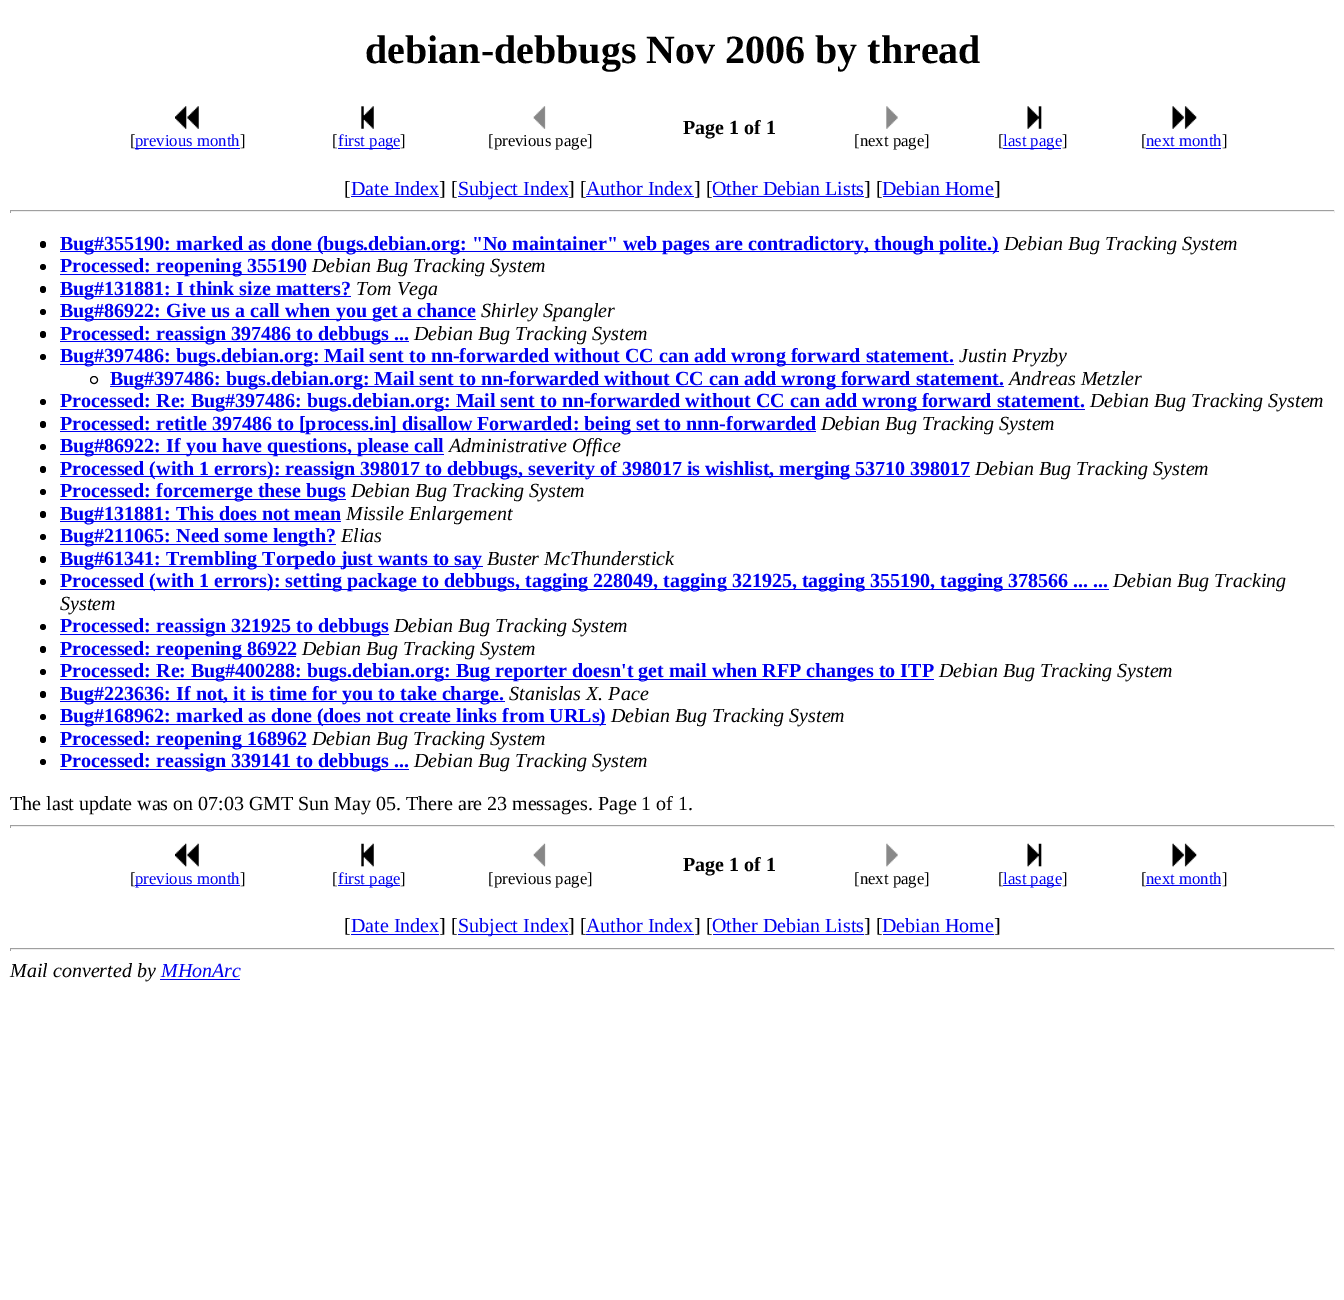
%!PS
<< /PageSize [1344 1300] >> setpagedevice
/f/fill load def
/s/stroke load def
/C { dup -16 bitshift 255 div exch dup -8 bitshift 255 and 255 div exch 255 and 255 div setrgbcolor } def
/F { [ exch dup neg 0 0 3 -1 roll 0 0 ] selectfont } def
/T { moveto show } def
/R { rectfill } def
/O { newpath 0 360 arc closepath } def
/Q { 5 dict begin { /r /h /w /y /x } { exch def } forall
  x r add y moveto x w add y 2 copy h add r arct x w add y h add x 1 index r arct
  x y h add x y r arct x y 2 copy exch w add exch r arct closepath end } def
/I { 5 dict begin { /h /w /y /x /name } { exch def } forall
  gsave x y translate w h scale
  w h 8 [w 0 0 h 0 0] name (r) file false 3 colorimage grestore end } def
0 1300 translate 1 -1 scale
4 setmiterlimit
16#FFFFFF C
0 0 1344 1300 R
/LiberationSerif-Bold 40 F
16#000000 C
(debian-debbugs Nov 2006 by thread) 365 63 T
/LiberationSerif-Bold 20 F
(Page 1 of 1) 683 134 T
(1.rgb) 175 106 24 23 I
/LiberationSerif-Regular 16.75 F
([) 130 146 T
16#0000EE C
135 148 105 1 R
(previous month) 135 146 T
16#000000 C
(]) 240 146 T
(2.rgb) 361 106 13 23 I
([) 332 146 T
16#0000EE C
338 148 62 1 R
(first page) 338 146 T
16#000000 C
(]) 400 146 T
(3.rgb) 533 106 13 23 I
([previous page]) 488 146 T
(4.rgb) 886 106 12 23 I
([next page]) 854 146 T
(5.rgb) 1027 106 15 23 I
([) 998 146 T
16#0000EE C
1003 148 58 1 R
(last page) 1003 146 T
16#000000 C
(]) 1062 146 T
(6.rgb) 1172 106 25 23 I
([) 1141 146 T
16#0000EE C
1146 148 75 1 R
(next month) 1146 146 T
16#000000 C
(]) 1222 146 T
/LiberationSerif-Regular 20 F
([) 344 195 T
16#0000EE C
(Date Index) 351 195 T
351 196 88 1 R
16#000000 C
(] [) 439 195 T
16#0000EE C
458 196 110 1 R
(Subject Index) 458 195 T
16#000000 C
(] [) 568 195 T
16#0000EE C
(Author Index) 586 195 T
586 196 108 1 R
16#000000 C
(] [) 694 195 T
16#0000EE C
(Other Debian Lists) 712 195 T
713 196 151 1 R
16#000000 C
(] [) 864 195 T
16#0000EE C
(Debian Home) 882 195 T
883 196 111 1 R
16#000000 C
(]) 994 195 T
16#9F9F9F C
10 210 1325 1 R
16#EEEEEE C
1334 210 1 3 R
10 211 1325 1 R
16#9F9F9F C
10 210 1 3 R
16#000000 C
40 241 6 7 3 Q f
16#0000EE C
60 251 939 1 R
/LiberationSerif-Bold 20 F
(Bug#355190: marked as done \(bugs.debian.org: "No maintainer" web pages are contradictory, though polite.\)) 60 250 T
/LiberationSerif-Italic 20 F
16#000000 C
(Debian Bug Tracking System) 1004 250 T
43 267 3 O f
16#0000EE C
60 274 246 1 R
/LiberationSerif-Bold 20 F
(Processed: reopening 355190) 60 272 T
/LiberationSerif-Italic 20 F
16#000000 C
(Debian Bug Tracking System) 312 272 T
40 286 6 7 3 Q f
16#0000EE C
60 296 291 1 R
/LiberationSerif-Bold 20 F
(Bug#131881: I think size matters?) 60 295 T
/LiberationSerif-Italic 20 F
16#000000 C
(Tom Vega) 356 295 T
43 312 3 O f
16#0000EE C
60 319 416 1 R
/LiberationSerif-Bold 20 F
(Bug#86922: Give us a call when you get a chance) 60 317 T
/LiberationSerif-Italic 20 F
16#000000 C
(Shirley Spangler) 481 317 T
40 331 6 7 3 Q f
16#0000EE C
60 341 349 1 R
/LiberationSerif-Bold 20 F
(Processed: reassign 397486 to debbugs ...) 60 340 T
/LiberationSerif-Italic 20 F
16#000000 C
(Debian Bug Tracking System) 414 340 T
43 357 3 O f
16#0000EE C
60 364 894 1 R
/LiberationSerif-Bold 20 F
(Bug#397486: bugs.debian.org: Mail sent to nn-forwarded without CC can add wrong forward statement.) 60 362 T
/LiberationSerif-Italic 20 F
16#000000 C
(Justin Pryzby) 959 362 T
94 380 3.5 O s
16#0000EE C
110 386 894 1 R
/LiberationSerif-Bold 20 F
(Bug#397486: bugs.debian.org: Mail sent to nn-forwarded without CC can add wrong forward statement.) 110 385 T
/LiberationSerif-Italic 20 F
16#000000 C
(Andreas Metzler) 1009 385 T
43 402 3 O f
16#0000EE C
60 409 1025 1 R
/LiberationSerif-Bold 20 F
(Processed: Re: Bug#397486: bugs.debian.org: Mail sent to nn-forwarded without CC can add wrong forward statement.) 60 407 T
/LiberationSerif-Italic 20 F
16#000000 C
(Debian Bug Tracking System) 1090 407 T
40 421 6 7 3 Q f
16#0000EE C
60 431 756 1 R
/LiberationSerif-Bold 20 F
(Processed: retitle 397486 to [process.in] disallow Forwarded: being set to nnn-forwarded) 60 430 T
/LiberationSerif-Italic 20 F
16#000000 C
(Debian Bug Tracking System) 821 430 T
43 447 3 O f
16#0000EE C
60 454 384 1 R
/LiberationSerif-Bold 20 F
(Bug#86922: If you have questions, please call) 60 452 T
/LiberationSerif-Italic 20 F
16#000000 C
(Administrative Office) 449 452 T
40 466 6 7 3 Q f
16#0000EE C
60 476 910 1 R
/LiberationSerif-Bold 20 F
(Processed \(with 1 errors\): reassign 398017 to debbugs, severity of 398017 is wishlist, merging 53710 398017) 60 475 T
/LiberationSerif-Italic 20 F
16#000000 C
(Debian Bug Tracking System) 975 475 T
43 492 3 O f
16#0000EE C
60 499 286 1 R
/LiberationSerif-Bold 20 F
(Processed: forcemerge these bugs) 60 497 T
/LiberationSerif-Italic 20 F
16#000000 C
(Debian Bug Tracking System) 351 497 T
40 511 6 7 3 Q f
16#0000EE C
60 521 281 1 R
/LiberationSerif-Bold 20 F
(Bug#131881: This does not mean) 60 520 T
/LiberationSerif-Italic 20 F
16#000000 C
(Missile Enlargement) 346 520 T
43 537 3 O f
16#0000EE C
60 544 276 1 R
/LiberationSerif-Bold 20 F
(Bug#211065: Need some length?) 60 542 T
/LiberationSerif-Italic 20 F
16#000000 C
(Elias) 341 542 T
40 556 6 7 3 Q f
16#0000EE C
60 566 423 1 R
/LiberationSerif-Bold 20 F
(Bug#61341: Trembling Torpedo just wants to say) 60 565 T
/LiberationSerif-Italic 20 F
16#000000 C
(Buster McThunderstick) 487 565 T
43 582 3 O f
16#0000EE C
60 589 1049 1 R
/LiberationSerif-Bold 20 F
(Processed \(with 1 errors\): setting package to debbugs, tagging 228049, tagging 321925, tagging 355190, tagging 378566 ... ...) 60 587 T
/LiberationSerif-Italic 20 F
16#000000 C
(Debian Bug Tracking) 1113 587 T
(System) 60 610 T
43 627 3 O f
16#0000EE C
60 634 329 1 R
/LiberationSerif-Bold 20 F
(Processed: reassign 321925 to debbugs) 60 632 T
/LiberationSerif-Italic 20 F
16#000000 C
(Debian Bug Tracking System) 394 632 T
40 646 6 7 3 Q f
16#0000EE C
60 656 236 1 R
/LiberationSerif-Bold 20 F
(Processed: reopening 86922) 60 655 T
/LiberationSerif-Italic 20 F
16#000000 C
(Debian Bug Tracking System) 302 655 T
43 672 3 O f
16#0000EE C
60 679 874 1 R
/LiberationSerif-Bold 20 F
(Processed: Re: Bug#400288: bugs.debian.org: Bug reporter doesn't get mail when RFP changes to ITP) 60 677 T
/LiberationSerif-Italic 20 F
16#000000 C
(Debian Bug Tracking System) 939 677 T
40 691 6 7 3 Q f
16#0000EE C
60 701 445 1 R
/LiberationSerif-Bold 20 F
(Bug#223636: If not, it is time for you to take charge.) 60 700 T
/LiberationSerif-Italic 20 F
16#000000 C
(Stanislas X. Pace) 509 700 T
43 717 3 O f
16#0000EE C
60 724 546 1 R
/LiberationSerif-Bold 20 F
(Bug#168962: marked as done \(does not create links from URLs\)) 60 722 T
/LiberationSerif-Italic 20 F
16#000000 C
(Debian Bug Tracking System) 611 722 T
40 736 6 7 3 Q f
16#0000EE C
60 746 246 1 R
/LiberationSerif-Bold 20 F
(Processed: reopening 168962) 60 745 T
/LiberationSerif-Italic 20 F
16#000000 C
(Debian Bug Tracking System) 312 745 T
43 762 3 O f
16#0000EE C
60 769 349 1 R
/LiberationSerif-Bold 20 F
(Processed: reassign 339141 to debbugs ...) 60 767 T
/LiberationSerif-Italic 20 F
16#000000 C
(Debian Bug Tracking System) 414 767 T
/LiberationSerif-Regular 20 F
(The last update was on 07:03 GMT Sun May 05. There are 23 messages. Page 1 of 1.) 10 810 T
16#9F9F9F C
10 825 1325 1 R
16#EEEEEE C
1334 825 1 3 R
10 826 1325 1 R
16#9F9F9F C
10 825 1 3 R
/LiberationSerif-Bold 20 F
16#000000 C
(Page 1 of 1) 683 871 T
(7.rgb) 175 843 24 24 I
/LiberationSerif-Regular 16.75 F
([) 130 884 T
16#0000EE C
135 885 105 1 R
(previous month) 135 884 T
16#000000 C
(]) 240 884 T
(8.rgb) 361 843 13 24 I
([) 332 884 T
16#0000EE C
338 885 62 1 R
(first page) 338 884 T
16#000000 C
(]) 400 884 T
(9.rgb) 533 843 13 24 I
([previous page]) 488 884 T
(10.rgb) 886 843 12 24 I
([next page]) 854 884 T
(11.rgb) 1027 843 15 24 I
([) 998 884 T
16#0000EE C
1003 885 58 1 R
(last page) 1003 884 T
16#000000 C
(]) 1062 884 T
(12.rgb) 1172 843 25 24 I
([) 1141 884 T
16#0000EE C
1146 885 75 1 R
(next month) 1146 884 T
16#000000 C
(]) 1222 884 T
/LiberationSerif-Regular 20 F
([) 344 932 T
16#0000EE C
(Date Index) 351 932 T
351 934 88 1 R
16#000000 C
(] [) 439 932 T
16#0000EE C
458 934 110 1 R
(Subject Index) 458 932 T
16#000000 C
(] [) 568 932 T
16#0000EE C
(Author Index) 586 932 T
586 934 108 1 R
16#000000 C
(] [) 694 932 T
16#0000EE C
(Other Debian Lists) 712 932 T
713 934 151 1 R
16#000000 C
(] [) 864 932 T
16#0000EE C
(Debian Home) 882 932 T
883 934 111 1 R
16#000000 C
(]) 994 932 T
16#9F9F9F C
10 948 1325 1 R
16#EEEEEE C
1334 948 1 3 R
10 949 1325 1 R
16#9F9F9F C
10 948 1 3 R
/LiberationSerif-Italic 20 F
16#000000 C
(Mail converted by) 10 977 T
16#0000EE C
(MHonArc) 161 977 T
160 979 80 1 R
showpage
